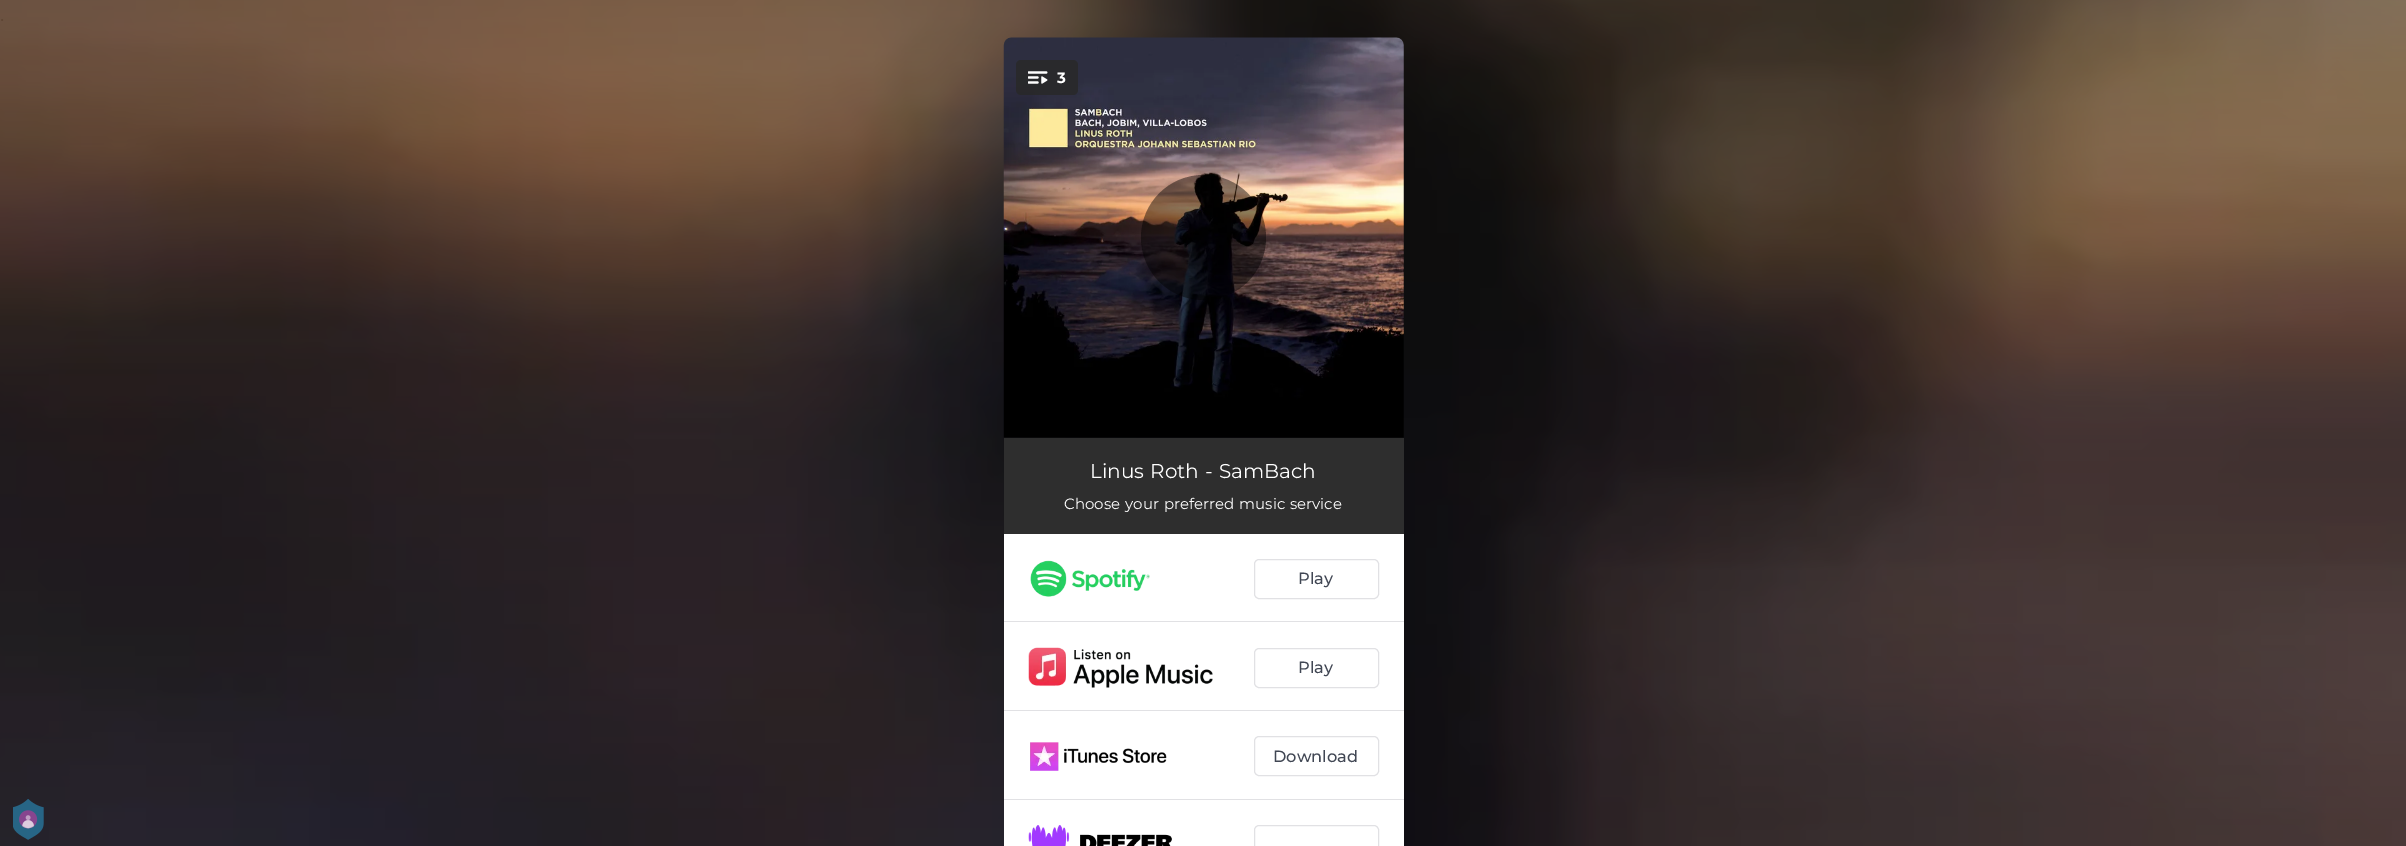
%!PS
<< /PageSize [2406 846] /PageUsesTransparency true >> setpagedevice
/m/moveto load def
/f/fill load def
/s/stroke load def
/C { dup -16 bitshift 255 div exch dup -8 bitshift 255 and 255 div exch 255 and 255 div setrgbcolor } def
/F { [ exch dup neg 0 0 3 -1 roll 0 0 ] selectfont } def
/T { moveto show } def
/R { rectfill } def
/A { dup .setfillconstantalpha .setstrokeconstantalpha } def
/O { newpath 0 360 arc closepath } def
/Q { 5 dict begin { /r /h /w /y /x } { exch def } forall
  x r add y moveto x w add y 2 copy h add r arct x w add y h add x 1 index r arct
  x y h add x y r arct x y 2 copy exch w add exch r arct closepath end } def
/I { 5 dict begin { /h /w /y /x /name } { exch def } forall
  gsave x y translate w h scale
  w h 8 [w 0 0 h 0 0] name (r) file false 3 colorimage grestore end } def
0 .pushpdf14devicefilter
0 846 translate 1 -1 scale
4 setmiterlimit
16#FFFFFF C
0 0 2406 846 R
(1.rgb) 0 0 2406 846 I
(2.rgb) 1003 37 401 401 I
0.85 A
16#282828 C
1016 60 62 35 5 Q f
1 A
(3.rgb) 1028 71 20 13 I
/Montserrat-Bold 15 F
16#FFFFFF C
(3) 1057 83 T
0.45 A
16#000000 C
1203.5 237.5 62.5 O f
1 A
16#2E2E2E C
1004 438 400 96 R
/Montserrat-Regular 20 F
16#FFFFFF C
1090 478 m 1 0 32 (Linus Roth - SamBach) widthshow
/Montserrat-Regular 15 F
1064 509 m 1 0 32 (Choose your preferred music service) widthshow
1004 534 400 312 R
16#E1E1E4 C
1004 621 400 1 R
(4.rgb) 1030 560 120 37 I
1254.5 559.5 124 39 4.5 Q s
/Montserrat-Medium 16.25 F
16#414754 C
(Play) 1298 584 T
16#E1E1E4 C
1004 710 400 1 R
(5.rgb) 1028 647 185 41 I
1254.5 648.5 124 39 4.5 Q s
16#414754 C
(Play) 1298 673 T
16#E1E1E4 C
1004 799 400 1 R
(6.rgb) 1030 742 137 29 I
1254.5 736.5 124 39 4.5 Q s
16#414754 C
(Download) 1273 762 T
(7.rgb) 1028 825 144 21 I
16#E1E1E4 C
1254.5 825.5 124 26 4.5 Q s
(8.rgb) 13 799 31 41 I
.poppdf14devicefilter showpage
